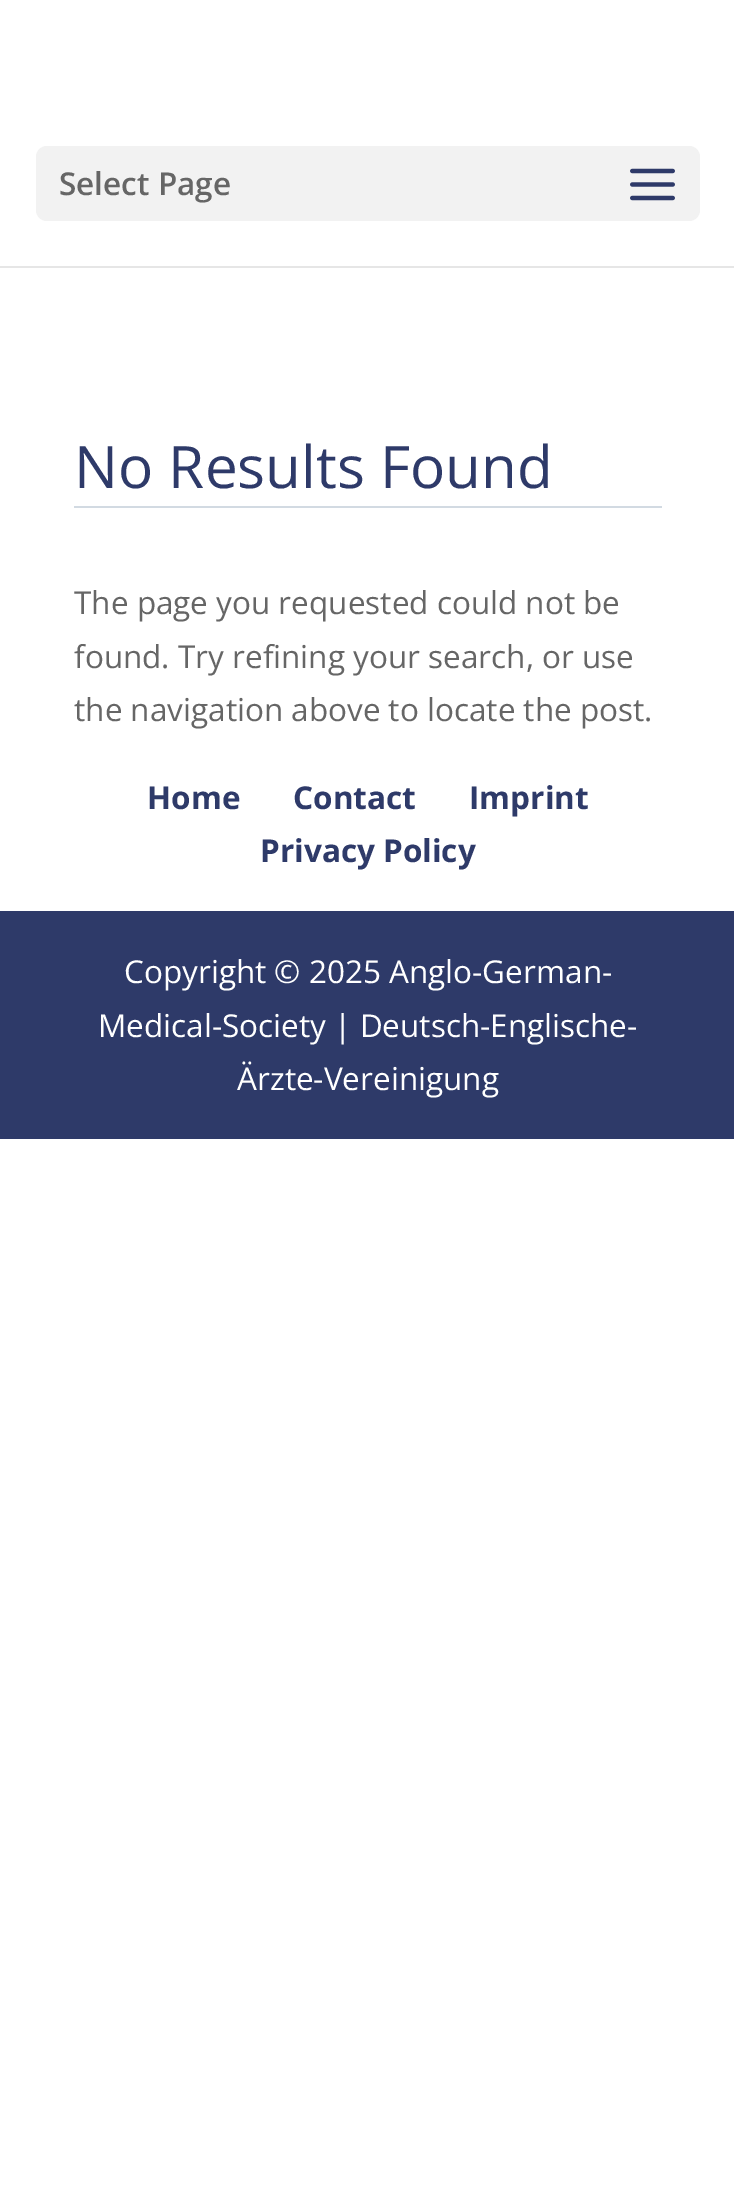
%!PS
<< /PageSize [734 2207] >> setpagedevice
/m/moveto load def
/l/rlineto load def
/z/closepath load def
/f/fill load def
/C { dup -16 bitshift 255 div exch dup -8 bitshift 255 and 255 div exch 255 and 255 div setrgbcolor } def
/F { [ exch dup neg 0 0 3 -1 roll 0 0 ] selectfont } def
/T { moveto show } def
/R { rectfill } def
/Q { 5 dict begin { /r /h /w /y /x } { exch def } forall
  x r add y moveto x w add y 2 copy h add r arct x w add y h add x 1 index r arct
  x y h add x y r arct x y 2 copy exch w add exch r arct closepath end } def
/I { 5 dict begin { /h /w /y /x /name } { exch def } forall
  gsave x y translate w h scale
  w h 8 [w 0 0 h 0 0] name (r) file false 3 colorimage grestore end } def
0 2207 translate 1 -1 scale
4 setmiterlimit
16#FFFFFF C
0 0 734 2207 R
16#E6E6E6 C
0 266 m 0 2 l 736 0 l 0 -266 l 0 264 l z f
16#F2F2F2 C
36 146 664 75 11 Q f
/OpenSans-SemiBold 31.5 F
16#666666 C
(Select Page) 59 195 T
(1.rgb) 630 168 45 33 I
16#D2DAE2 C
74 506 588 2 R
/OpenSans-Regular 58.5 F
16#2E3A69 C
(No Results Found) 74 488 T
/OpenSans-Regular 31.5 F
16#666666 C
(The page you requested could not be) 74 614 T
(found. Try refining your search, or use) 74 668 T
(the navigation above to locate the post.) 74 721 T
/OpenSans-Bold 31.5 F
16#2E3A69 C
(Home) 147 809 T
(Contact) 293 809 T
(Imprint) 469 809 T
(Privacy Policy) 260 862 T
0 911 734 228 R
/OpenSans-Regular 31.5 F
16#FFFFFF C
(Copyright © 2025 Anglo-German-) 124 983 T
(Medical-Society | Deutsch-Englische-) 98 1037 T
(Ärzte-Vereinigung) 237 1090 T
showpage
